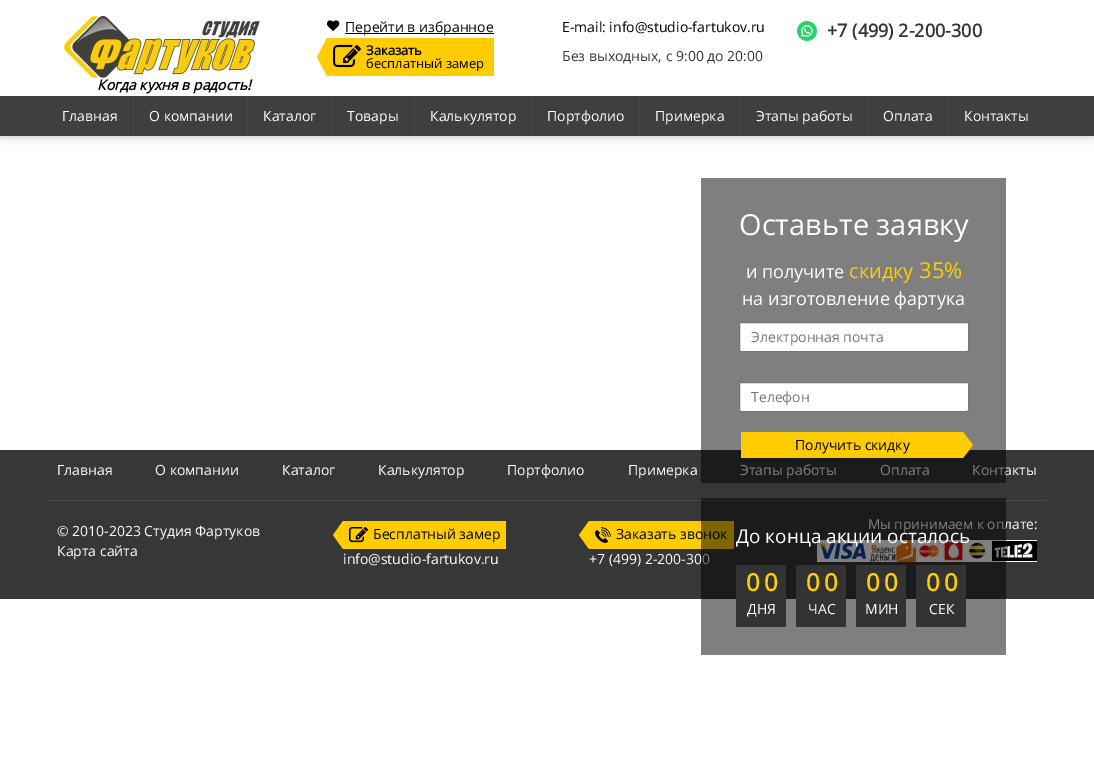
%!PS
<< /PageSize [1094 784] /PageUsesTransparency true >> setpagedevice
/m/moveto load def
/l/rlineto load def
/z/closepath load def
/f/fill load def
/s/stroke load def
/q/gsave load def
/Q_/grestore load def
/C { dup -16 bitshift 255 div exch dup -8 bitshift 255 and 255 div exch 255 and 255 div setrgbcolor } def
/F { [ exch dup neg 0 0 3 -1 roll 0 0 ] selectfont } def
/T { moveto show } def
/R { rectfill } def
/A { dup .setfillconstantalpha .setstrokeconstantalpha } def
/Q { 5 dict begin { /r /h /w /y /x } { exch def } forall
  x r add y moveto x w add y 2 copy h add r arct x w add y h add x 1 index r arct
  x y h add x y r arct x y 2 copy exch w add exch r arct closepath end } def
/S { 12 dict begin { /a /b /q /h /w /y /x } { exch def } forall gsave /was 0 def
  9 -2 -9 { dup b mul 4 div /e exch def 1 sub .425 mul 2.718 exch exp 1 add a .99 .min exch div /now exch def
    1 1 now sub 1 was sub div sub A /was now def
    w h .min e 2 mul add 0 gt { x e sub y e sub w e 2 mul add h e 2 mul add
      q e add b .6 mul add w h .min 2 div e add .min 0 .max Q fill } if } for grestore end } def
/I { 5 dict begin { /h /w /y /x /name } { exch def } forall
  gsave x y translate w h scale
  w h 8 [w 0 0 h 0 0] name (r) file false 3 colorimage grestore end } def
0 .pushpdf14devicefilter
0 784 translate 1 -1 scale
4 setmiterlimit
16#FFFFFF C
0 0 1094 784 R
q
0 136 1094 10 rectclip
16#BBBBBB C
0 0 1094 136 0 5 1 S
Q_
(1.rgb) 327 20 13 11 I
16#000000 C
345 33 149 1 R
/OpenSans-Regular 14 F
(Перейти в избранное) 345 32 T
16#FFCC00 C
327 38 167 38 R
327 38 m 0 38 l -10 -19 l z f
(2.rgb) 333 44 28 24 I
/OpenSans-Bold 13 F
16#000000 C
(Заказать) 366 55 T
/OpenSans-Regular 13 F
(бесплатный замер) 366 68 T
/OpenSans-Regular 14 F
(E-mail: info@studio-fartukov.ru) 562 32 T
16#333333 C
(Без выходных, с 9:00 до 20:00) 562 61 T
(3.rgb) 797 21 20 20 I
/OpenSans-Bold 18 F
(+7 \(499\) 2-200-300) 827 37 T
(4.rgb) 64 16 196 62 I
/OpenSans-BoldItalic 14 F
16#000000 C
(Когда кухня в радость!) 97 90 T
16#3F3F3D C
0 96 1094 40 R
16#484847 C
133 96 1 40 R
/OpenSans-Regular 14 F
16#FFFFFF C
(Главная) 62 121 T
16#484847 C
247 96 1 40 R
16#FFFFFF C
(О компании) 149 121 T
16#484847 C
331 96 1 40 R
16#FFFFFF C
(Каталог) 263 121 T
16#484847 C
414 96 1 40 R
16#FFFFFF C
(Товары) 347 121 T
16#484847 C
531 96 1 40 R
16#FFFFFF C
(Калькулятор) 430 121 T
16#484847 C
639 96 1 40 R
16#FFFFFF C
(Портфолио) 547 121 T
16#484847 C
740 96 1 40 R
16#FFFFFF C
(Примерка) 655 121 T
16#484847 C
867 96 1 40 R
16#FFFFFF C
(Этапы работы) 756 121 T
16#484847 C
948 96 1 40 R
16#FFFFFF C
(Оплата) 883 121 T
(Контакты) 964 121 T
16#373737 C
0 450 1094 149 R
16#FFFFFF C
(Этапы работы) 740 475 T
(Оплата) 880 475 T
(Контакты) 972 475 T
0.5 A
16#000000 C
701 178 305 305 R
/OpenSans-Regular 29 F
1 A
16#FFFFFF C
(Оставьте заявку) 739 235 T
/OpenSans-Regular 18 F
(и получите) 746 278 T
/OpenSans-Regular 20 F
16#FFCD00 C
(скидку) 849 278 T
/OpenSans-Regular 22 F
(35%) 919 278 T
/OpenSans-Regular 18 F
16#FFFFFF C
(на изготовление фартука) 742 305 T
739.5 322.5 229 29 1.5 Q q f Q_
16#767676 C
s
/OpenSans-Regular 14 F
16#757575 C
(Электронная почта) 751 342 T
16#FFFFFF C
739.5 382.5 229 29 1.5 Q q f Q_
16#767676 C
s
16#757575 C
(Телефон) 751 402 T
16#FFCC00 C
741 432 222 26 R
16#000000 C
(Получить скидку) 795 450 T
16#FFCC00 C
963 458 m 0 -26 l 10 13 l z f
16#484847 C
47 500 1000 1 R
16#FFCC00 C
589 521 145 28 R
16#000000 C
(Заказать звонок) 616 539 T
16#FFFFFF C
(+7 \(499\) 2-200-300) 589 564 T
/OpenSans-Regular 13.75 F
(Мы принимаем к оплате:) 868 529 T
817 540 220 22 R
(7.rgb) 817 543 49 16 I
(8.rgb) 870 540 46 22 I
(9.rgb) 919 545 20 12 I
(10.rgb) 943 541 21 20 I
(11.rgb) 968 542 18 17 I
(12.rgb) 992 541 45 20 I
0.5 A
16#000000 C
701 498 305 157 R
/OpenSans-Regular 19 F
1 A
16#FFFFFF C
(До конца акции осталось) 736 543 T
16#333333 C
736 565 50 62 R
/OpenSans-Bold 24 F
16#FFCD00 C
(0) 746 591 T
(0) 764 591 T
/OpenSans-Regular 14 F
16#FFFFFF C
(ДНЯ) 747 614 T
16#333333 C
796 565 50 62 R
/OpenSans-Bold 24 F
16#FFCD00 C
(0) 806 591 T
(0) 824 591 T
/OpenSans-Regular 14 F
16#FFFFFF C
(ЧАС) 808 614 T
16#333333 C
856 565 50 62 R
/OpenSans-Bold 24 F
16#FFCD00 C
(0) 866 591 T
(0) 884 591 T
/OpenSans-Regular 14 F
16#FFFFFF C
(МИН) 865 614 T
16#333333 C
916 565 50 62 R
/OpenSans-Bold 24 F
16#FFCD00 C
(0) 926 591 T
(0) 944 591 T
/OpenSans-Regular 14 F
16#FFFFFF C
(СЕК) 929 614 T
(Главная) 57 475 T
(О компании) 155 475 T
(Каталог) 282 475 T
(Калькулятор) 378 475 T
(Портфолио) 507 475 T
(Примерка) 628 475 T
(© 2010-2023 Студия Фартуков) 57 536 T
(Карта сайта) 57 556 T
16#FFCC00 C
343 521 163 28 R
343 521 m 0 28 l -10 -14 l z f
(5.rgb) 349 527 19 16 I
16#000000 C
(Бесплатный замер) 373 539 T
16#FFFFFF C
(info@studio-fartukov.ru) 343 564 T
16#FFCC00 C
589 521 m 0 28 l -10 -14 l z f
(6.rgb) 595 527 16 16 I
.poppdf14devicefilter showpage
